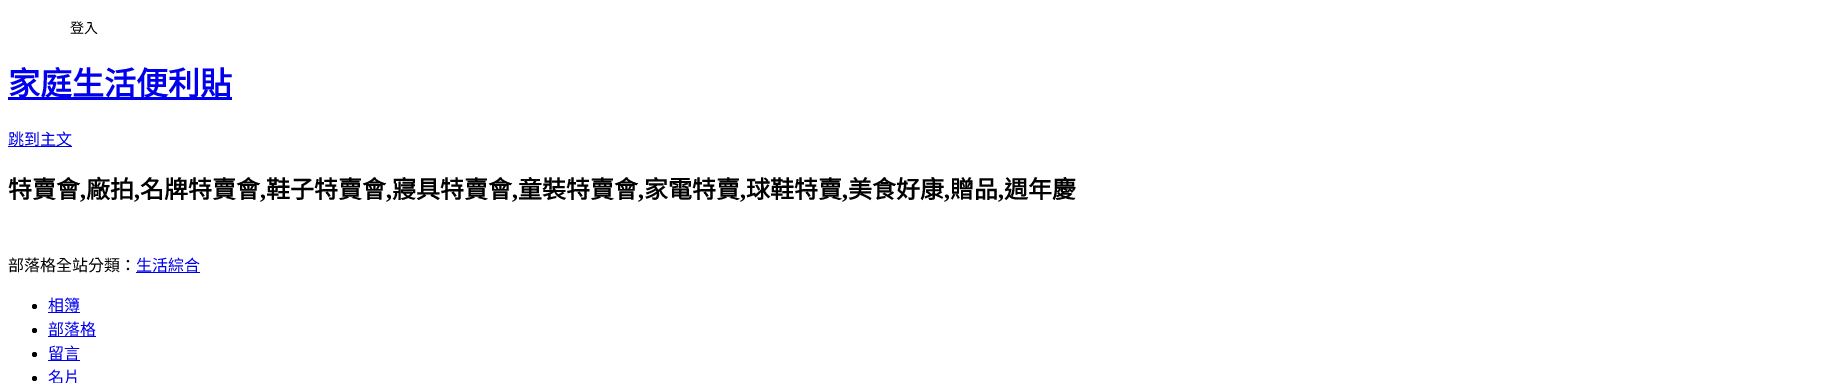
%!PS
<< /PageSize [1826 383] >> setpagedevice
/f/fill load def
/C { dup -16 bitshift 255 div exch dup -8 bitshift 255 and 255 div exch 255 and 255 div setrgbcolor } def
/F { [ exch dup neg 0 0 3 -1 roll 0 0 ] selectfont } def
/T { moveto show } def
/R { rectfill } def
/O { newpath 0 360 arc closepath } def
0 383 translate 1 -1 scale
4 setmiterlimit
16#FFFFFF C
0 0 1826 383 R
/NotoSansCJKTC-Regular 14 F
16#000000 C
(登入) 70 33 T
16#0000EE C
8 97 224 3 R
/NotoSansCJKTC-Bold 32 F
(家庭生活便利貼) 8 95 T
8 146 64 1 R
/NotoSansCJKTC-Regular 16 F
(跳到主文) 8 145 T
/NotoSansCJKTC-Bold 24 F
16#000000 C
(特賣會) 8 198 T
/LiberationSerif-Bold 24 F
(,) 80 198 T
/NotoSansCJKTC-Bold 24 F
(廠拍) 86 198 T
/LiberationSerif-Bold 24 F
(,) 134 198 T
/NotoSansCJKTC-Bold 24 F
(名牌特賣會) 140 198 T
/LiberationSerif-Bold 24 F
(,) 260 198 T
/NotoSansCJKTC-Bold 24 F
(鞋子特賣會) 266 198 T
/LiberationSerif-Bold 24 F
(,) 386 198 T
/NotoSansCJKTC-Bold 24 F
(寢具特賣會) 392 198 T
/LiberationSerif-Bold 24 F
(,) 512 198 T
/NotoSansCJKTC-Bold 24 F
(童裝特賣會) 518 198 T
/LiberationSerif-Bold 24 F
(,) 638 198 T
/NotoSansCJKTC-Bold 24 F
(家電特賣) 644 198 T
/LiberationSerif-Bold 24 F
(,) 740 198 T
/NotoSansCJKTC-Bold 24 F
(球鞋特賣) 746 198 T
/LiberationSerif-Bold 24 F
(,) 842 198 T
/NotoSansCJKTC-Bold 24 F
(美食好康) 848 198 T
/LiberationSerif-Bold 24 F
(,) 944 198 T
/NotoSansCJKTC-Bold 24 F
(贈品) 950 198 T
/LiberationSerif-Bold 24 F
(,) 998 198 T
/NotoSansCJKTC-Bold 24 F
(週年慶) 1004 198 T
/NotoSansCJKTC-Regular 16 F
(部落格全站分類：) 8 271 T
16#0000EE C
136 272 64 1 R
(生活綜合) 136 271 T
16#000000 C
34.5 306.5 2.5 O f
16#0000EE C
48 312 32 1 R
(相簿) 48 311 T
16#000000 C
34.5 330.5 2.5 O f
16#0000EE C
48 336 48 1 R
(部落格) 48 335 T
16#000000 C
34.5 354.5 2.5 O f
16#0000EE C
48 360 32 1 R
(留言) 48 359 T
16#000000 C
34.5 378.5 2.5 O f
16#0000EE C
(名片) 48 383 T
showpage
